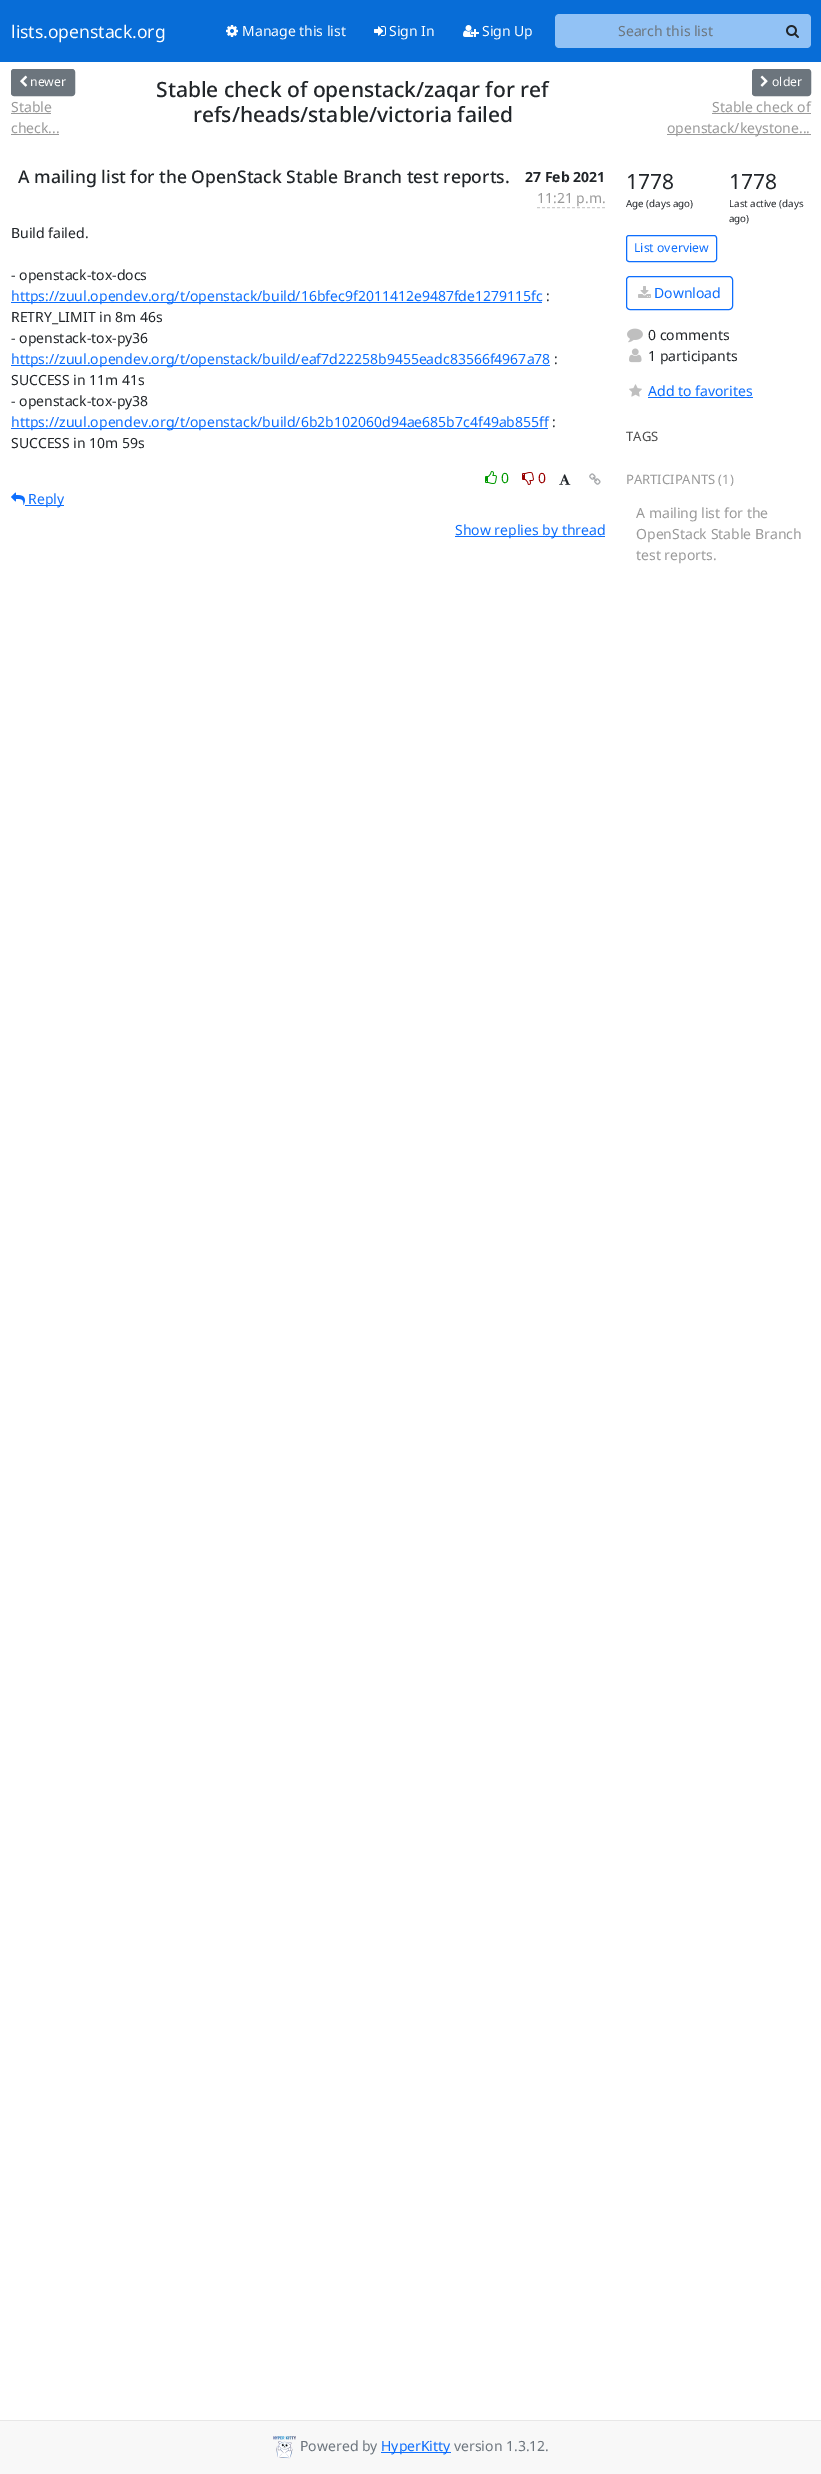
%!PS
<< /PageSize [821 2474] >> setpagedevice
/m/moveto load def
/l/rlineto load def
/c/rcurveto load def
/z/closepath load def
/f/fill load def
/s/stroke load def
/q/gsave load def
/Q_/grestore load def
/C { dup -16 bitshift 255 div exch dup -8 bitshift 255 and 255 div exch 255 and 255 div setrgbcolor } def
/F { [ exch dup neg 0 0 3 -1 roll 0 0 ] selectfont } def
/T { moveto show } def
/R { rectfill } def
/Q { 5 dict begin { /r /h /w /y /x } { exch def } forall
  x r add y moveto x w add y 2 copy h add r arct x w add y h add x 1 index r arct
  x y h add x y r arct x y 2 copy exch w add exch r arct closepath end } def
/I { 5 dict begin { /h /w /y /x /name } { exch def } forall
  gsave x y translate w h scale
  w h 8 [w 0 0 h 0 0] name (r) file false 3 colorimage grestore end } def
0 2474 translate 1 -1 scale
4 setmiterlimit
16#FFFFFF C
0 0 821 2474 R
16#086DD7 C
0 0 821 62 R
/NotoSans-Regular 17.5 F
16#FFFFFF C
(lists.openstack.org) 11 38 T
(1.rgb) 226 25 12 12 I
/NotoSans-Regular 14 F
(Manage this list) 242 36 T
(2.rgb) 374 26 12 10 I
(Sign In) 389 36 T
(3.rgb) 463 25 16 12 I
(Sign Up) 482 36 T
16#92C2F5 C
559 14 m 217 0 l 0 34 l -217 0 l -2 0 -4 -2 -4 -4 c 0 -26 l 0 -2 2 -4 4 -4 c z f
16#6C757D C
(Search this list) 618 36 T
16#92C2F5 C
775 14 m 32 0 l 2 0 4 2 4 4 c 0 26 l 0 2 -2 4 -4 4 c -32 0 l z f
(4.rgb) 786 25 13 13 I
16#6C757D C
11.5 69.5 63 26 2.5 Q q f Q_
s
(5.rgb) 20 75 8 12 I
/NotoSans-Regular 12.25 F
16#FFFFFF C
(newer) 30 86 T
/NotoSans-Regular 14 F
16#999999 C
(Stable) 11 112 T
11 113 40 1 R
(check...) 11 133 T
11 134 48 1 R
/NotoSans-Medium 21 F
16#212529 C
(Stable check of openstack/zaqar for ref) 156 97 T
(refs/heads/stable/victoria failed) 193 122 T
16#6C757D C
752.5 69.5 58 26 2.5 Q q f Q_
s
(6.rgb) 760 75 8 12 I
/NotoSans-Regular 12.25 F
16#FFFFFF C
(older) 772 86 T
/NotoSans-Regular 14 F
16#999999 C
(Stable check of) 712 112 T
712 113 99 1 R
667 134 144 1 R
(openstack/keystone...) 667 133 T
/NotoSans-Medium 17.5 F
16#212529 C
(A mailing list for the OpenStack Stable Branch test reports.) 18 183 T
/NotoSans-Bold 14 F
(27 Feb 2021) 525 182 T
/NotoSans-Regular 14 F
16#999999 C
(11:21 p.m.) 537 203 T
16#CCCCCC C
[3 2] 0 setdash
537 207.5 m 68 0 l s
16#212529 C
(Build failed.) 11 238 T
(- openstack-tox-docs) 11 280 T
16#0D6EFD C
11 302 531 1 R
(https://zuul.opendev.org/t/openstack/build/16bfec9f2011412e9487fde1279115fc) 11 301 T
16#212529 C
(:) 546 301 T
(RETRY_LIMIT in 8m 46s) 11 322 T
(- openstack-tox-py36) 11 343 T
16#0D6EFD C
11 365 539 1 R
(https://zuul.opendev.org/t/openstack/build/eaf7d22258b9455eadc83566f4967a78) 11 364 T
16#212529 C
(:) 554 364 T
(SUCCESS in 11m 41s) 11 385 T
(- openstack-tox-py38) 11 406 T
16#0D6EFD C
11 428 537 1 R
(https://zuul.opendev.org/t/openstack/build/6b2b102060d94ae685b7c4f49ab855ff) 11 427 T
16#212529 C
(:) 552 427 T
(SUCCESS in 10m 59s) 11 448 T
(7.rgb) 485 471 12 13 I
16#009900 C
(0) 501 483 T
(8.rgb) 522 472 12 13 I
16#990000 C
(0) 538 483 T
(9.rgb) 559 474 12 11 I
(10.rgb) 589 473 12 12 I
(11.rgb) 11 492 14 13 I
16#0D6EFD C
25 505 39 1 R
(Reply) 28 504 T
455 536 150 1 R
(Show replies by thread) 455 535 T
/NotoSans-Regular 21 F
16#212529 C
(1778) 626 189 T
/NotoSans-Regular 9.75 F
(Age \(days ago\)) 626 207 T
/NotoSans-Regular 21 F
(1778) 729 189 T
/NotoSans-Regular 9.75 F
(Last active \(days) 729 207 T
(ago\)) 729 222 T
16#0D6EFD C
[] 0 setdash
626.5 235.5 90 26 2.5 Q s
/NotoSans-Regular 12.25 F
(List overview) 634 252 T
626.5 276.5 106 33 3.5 Q s
(12.rgb) 638 286 13 12 I
/NotoSans-Regular 14 F
(Download) 654 298 T
(13.rgb) 627 328 16 15 I
16#212529 C
(0 comments) 648 340 T
(14.rgb) 629 348 13 15 I
(1 participants) 648 361 T
(15.rgb) 629 384 13 13 I
16#0D6EFD C
(Add to favorites) 648 396 T
648 397 105 1 R
/NotoSans-Regular 13 F
16#4D4D4D C
(TAGS) 626 441 T
16#999999 C
(PARTICIPANTS \(1\)) 626 484 T
/NotoSans-Regular 14 F
(A mailing list for the) 636 518 T
(OpenStack Stable Branch) 636 539 T
(test reports.) 636 560 T
16#F8F8F8 C
0 2421 821 53 R
16#E7E7E7 C
0 2420 821 1 R
(16.rgb) 273 2436 23 23 I
16#6C757D C
(Powered by) 300 2451 T
16#0D6EFD C
381 2452 70 1 R
(HyperKitty) 381 2451 T
16#6C757D C
(version 1.3.12.) 454 2451 T
showpage
